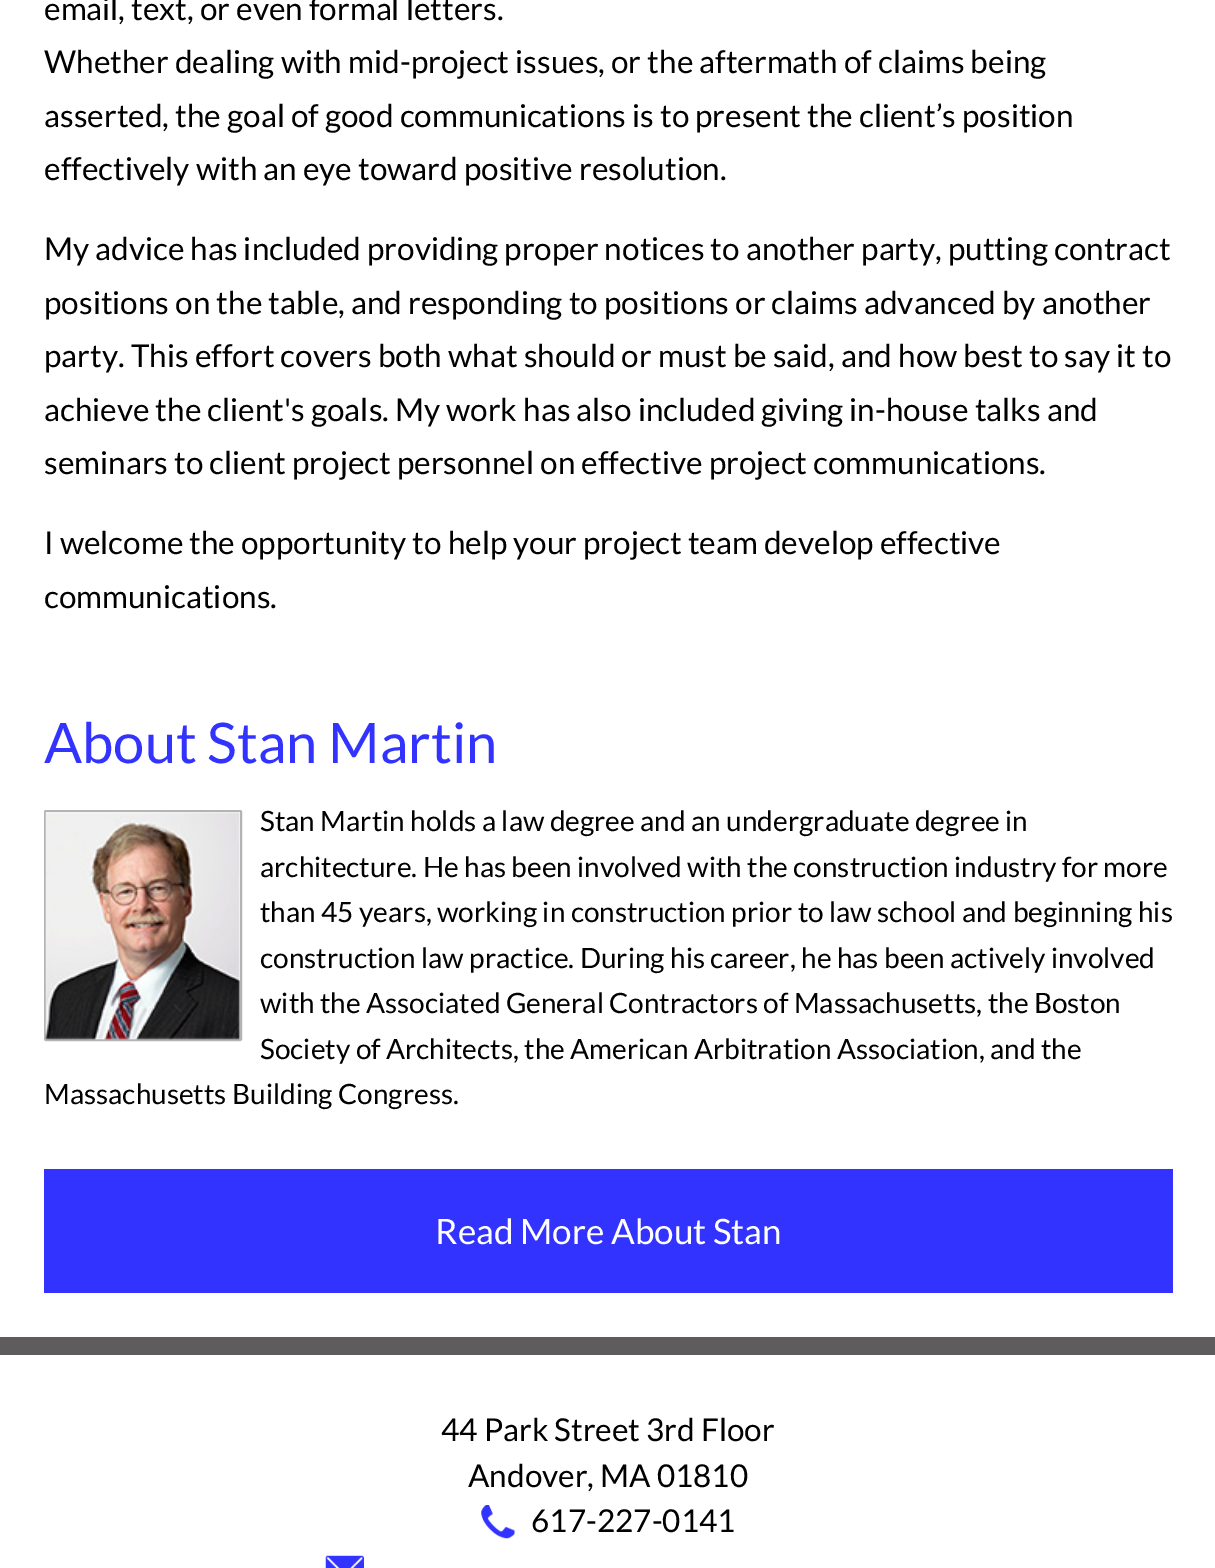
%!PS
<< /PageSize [1215 1568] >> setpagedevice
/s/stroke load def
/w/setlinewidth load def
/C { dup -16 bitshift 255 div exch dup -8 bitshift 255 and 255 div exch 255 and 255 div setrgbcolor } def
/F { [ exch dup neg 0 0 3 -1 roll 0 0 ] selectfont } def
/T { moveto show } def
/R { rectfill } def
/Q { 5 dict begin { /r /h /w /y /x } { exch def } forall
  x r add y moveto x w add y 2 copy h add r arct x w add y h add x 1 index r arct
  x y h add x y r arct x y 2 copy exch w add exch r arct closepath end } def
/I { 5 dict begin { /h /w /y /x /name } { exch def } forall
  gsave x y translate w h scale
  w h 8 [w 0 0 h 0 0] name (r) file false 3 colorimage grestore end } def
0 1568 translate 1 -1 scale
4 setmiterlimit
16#FFFFFF C
0 0 1215 1568 R
/Lato-Regular 31.5 F
16#000000 C
(email, text, or even formal letters.) 44 20 T
(Whether dealing with mid-project issues, or the aftermath of claims being) 44 73 T
(asserted, the goal of good communications is to present the client’s position) 44 127 T
(effectively with an eye toward positive resolution.) 44 180 T
(My advice has included providing proper notices to another party, putting contract) 44 260 T
(positions on the table, and responding to positions or claims advanced by another) 44 314 T
(party. This effort covers both what should or must be said, and how best to say it to) 44 367 T
(achieve the client's goals. My work has also included giving in-house talks and) 44 421 T
(seminars to client project personnel on effective project communications.) 44 474 T
(I welcome the opportunity to help your project team develop effective) 44 554 T
(communications.) 44 608 T
/Lato-Regular 56 F
16#3333FF C
(About Stan Martin) 44 763 T
16#B5B4B4 C
2 w
45 811 196 229 1 Q s
(1.rgb) 45 812 195 228 I
/Lato-Regular 28 F
16#000000 C
(Stan Martin holds a law degree and an undergraduate degree in) 260 831 T
(architecture. He has been involved with the construction industry for more) 260 877 T
(than 45 years, working in construction prior to law school and beginning his) 260 922 T
(construction law practice. During his career, he has been actively involved) 260 968 T
(with the Associated General Contractors of Massachusetts, the Boston) 260 1013 T
(Society of Architects, the American Arbitration Association, and the) 260 1059 T
(Massachusetts Building Congress.) 44 1104 T
16#3333FF C
44 1169 1129 124 R
/Lato-Regular 35 F
16#FFFFFF C
(Read More About Stan) 435 1244 T
16#5E5C5C C
0 1337 1215 18 R
/Lato-Regular 31.5 F
16#000000 C
(44 Park Street 3rd Floor) 441 1441 T
(Andover, MA 01810) 468 1487 T
(2.rgb) 481 1505 34 34 I
(617-227-0141) 531 1532 T
(3.rgb) 325 1555 39 13 I
showpage
